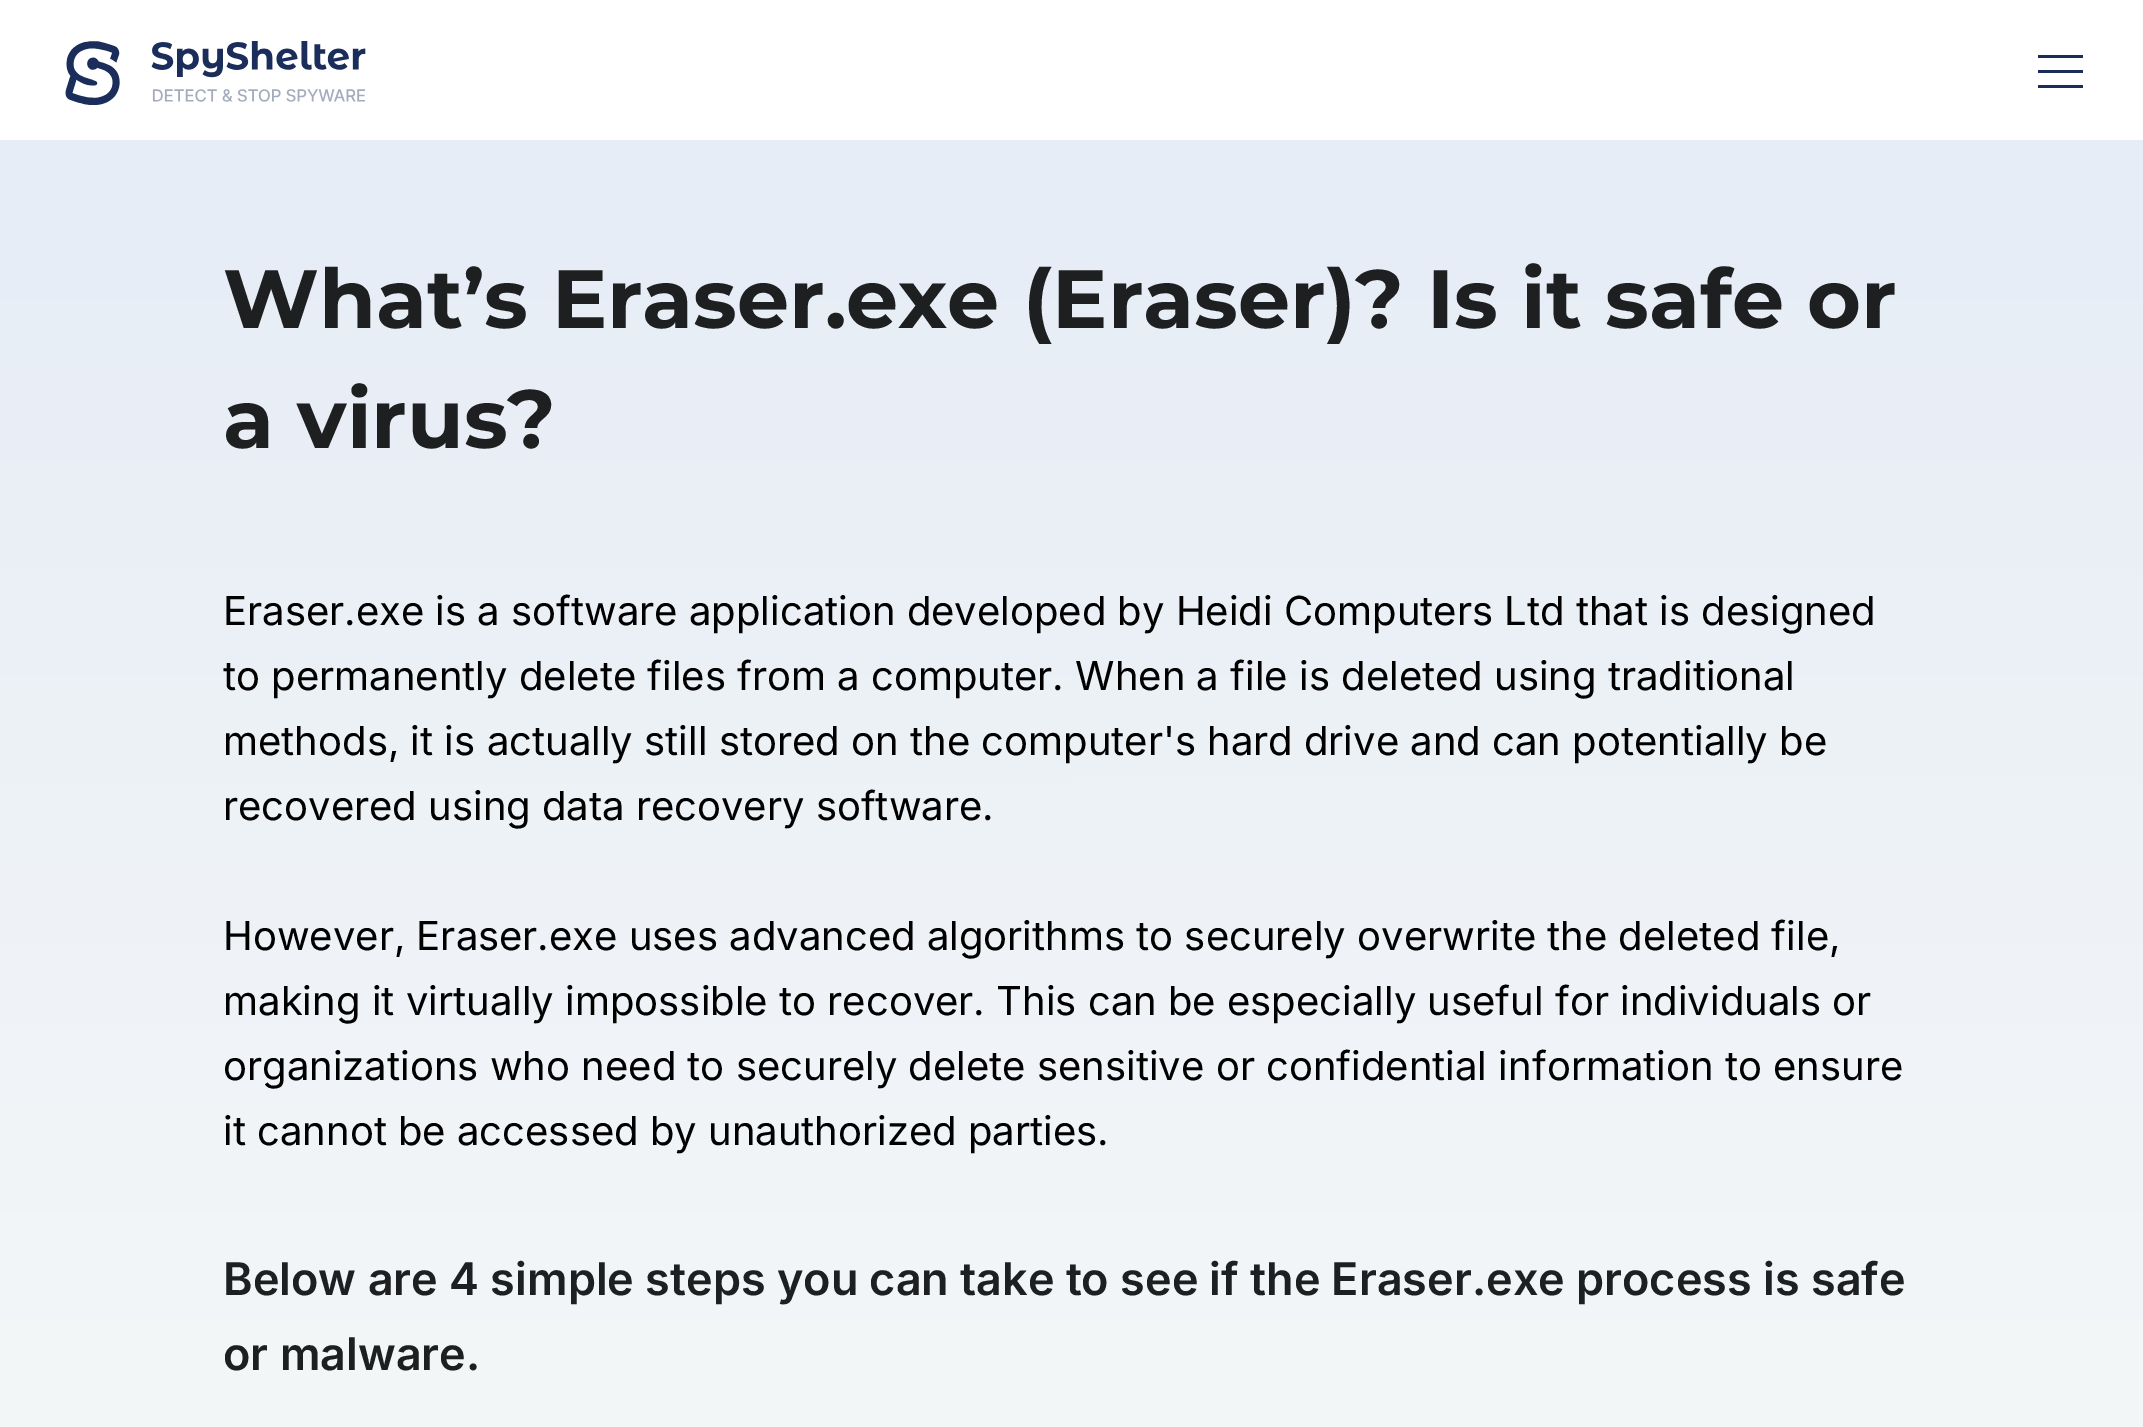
%!PS
<< /PageSize [2143 1427] >> setpagedevice
/m/moveto load def
/l/rlineto load def
/z/closepath load def
/q/gsave load def
/Q_/grestore load def
/C { dup -16 bitshift 255 div exch dup -8 bitshift 255 and 255 div exch 255 and 255 div setrgbcolor } def
/F { [ exch dup neg 0 0 3 -1 roll 0 0 ] selectfont } def
/T { moveto show } def
/R { rectfill } def
/I { 5 dict begin { /h /w /y /x /name } { exch def } forall
  gsave x y translate w h scale
  w h 8 [w 0 0 h 0 0] name (r) file false 3 colorimage grestore end } def
0 1427 translate 1 -1 scale
4 setmiterlimit
16#FFFFFF C
0 0 2143 1427 R
q 0 140 m 2143 0 l 0 1287 l -2143 0 l z clip newpath
<< /ShadingType 2 /ColorSpace /DeviceRGB /Coords [1072 0 1073 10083] /Extend [true true] /Function << /FunctionType 3 /Domain [0 1] /Functions [<< /FunctionType 2 /Domain [0 1] /C0 [.898 .925 .965] /C1 [.969 .976 .969] /N 1 >> << /FunctionType 2 /Domain [0 1] /C0 [.969 .976 .969] /C1 [.969 .976 .969] /N 1 >>] /Bounds [.17] /Encode [0 1 0 1] >> >> shfill Q_
(1.rgb) 65 41 301 64 I
16#1A2D5B C
2038 55 45 3 R
2038 70 45 3 R
2038 85 45 3 R
/Montserrat-Bold 82.5 F
16#1E1F20 C
(What’s Eraser.exe \(Eraser\)? Is it safe or) 223 328 T
(a virus?) 223 448 T
/Inter-Regular 40 F
16#000000 C
(Eraser.exe is a software application developed by Heidi Computers Ltd that is designed) 223 625 T
(to permanently delete files from a computer. When a file is deleted using traditional) 223 690 T
(methods, it is actually still stored on the computer's hard drive and can potentially be) 223 755 T
(recovered using data recovery software.) 223 820 T
(However, Eraser.exe uses advanced algorithms to securely overwrite the deleted file,) 223 950 T
(making it virtually impossible to recover. This can be especially useful for individuals or) 223 1015 T
(organizations who need to securely delete sensitive or confidential information to ensure) 223 1080 T
(it cannot be accessed by unauthorized parties.) 223 1145 T
/Inter-SemiBold 45 F
16#1E1F20 C
(Below are 4 simple steps you can take to see if the Eraser.exe process is safe) 223 1295 T
(or malware.) 223 1370 T
showpage
